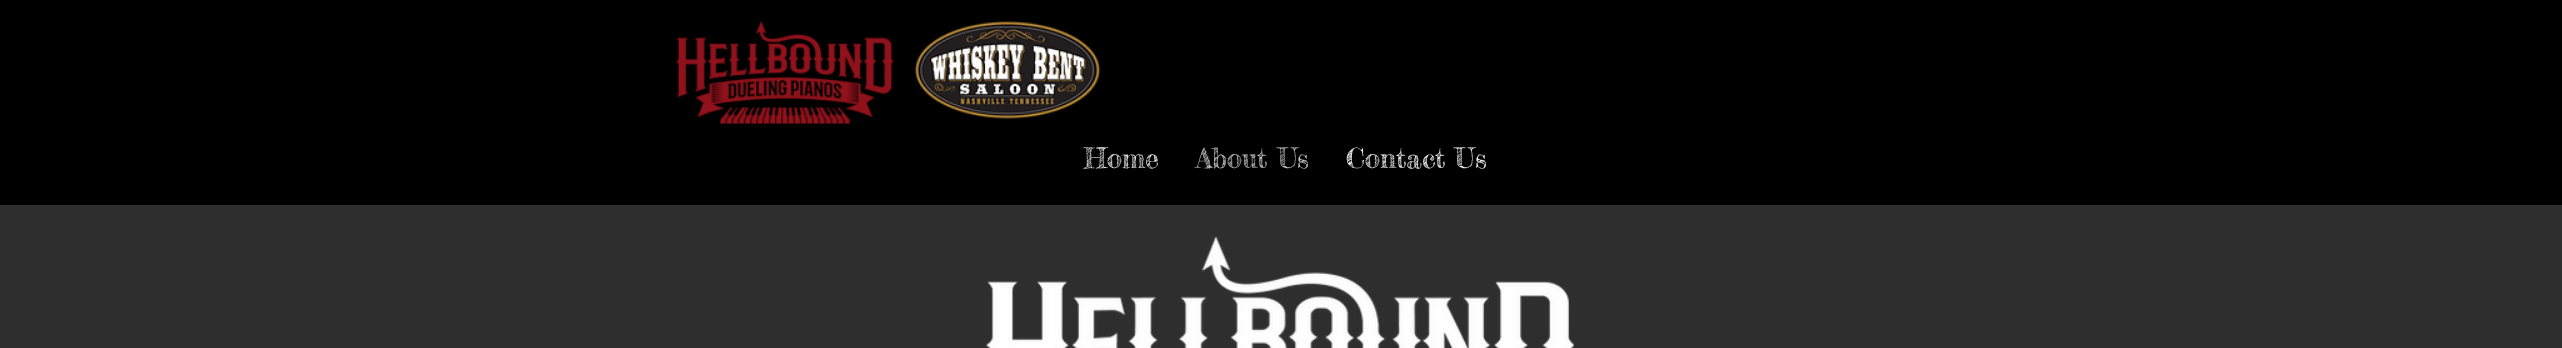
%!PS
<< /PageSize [2562 348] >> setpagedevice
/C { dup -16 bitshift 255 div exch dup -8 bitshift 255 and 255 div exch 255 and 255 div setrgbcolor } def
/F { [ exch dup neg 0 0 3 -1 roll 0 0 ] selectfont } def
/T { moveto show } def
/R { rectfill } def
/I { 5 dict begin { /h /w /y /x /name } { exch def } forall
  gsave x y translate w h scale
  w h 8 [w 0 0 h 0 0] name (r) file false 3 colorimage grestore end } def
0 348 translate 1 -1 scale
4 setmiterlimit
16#2F2E2E C
0 0 2562 348 R
16#000000 C
0 0 2562 205 R
(1.rgb) 676 21 218 103 I
(2.rgb) 915 21 185 98 I
/FrederickatheGreat-Regular 27.5 F
16#FFFFFF C
(Home) 1084 168 T
16#CCCCCC C
(About Us) 1196 168 T
16#FFFFFF C
(Contact Us) 1346 168 T
(3.rgb) 986 236 588 112 I
showpage
